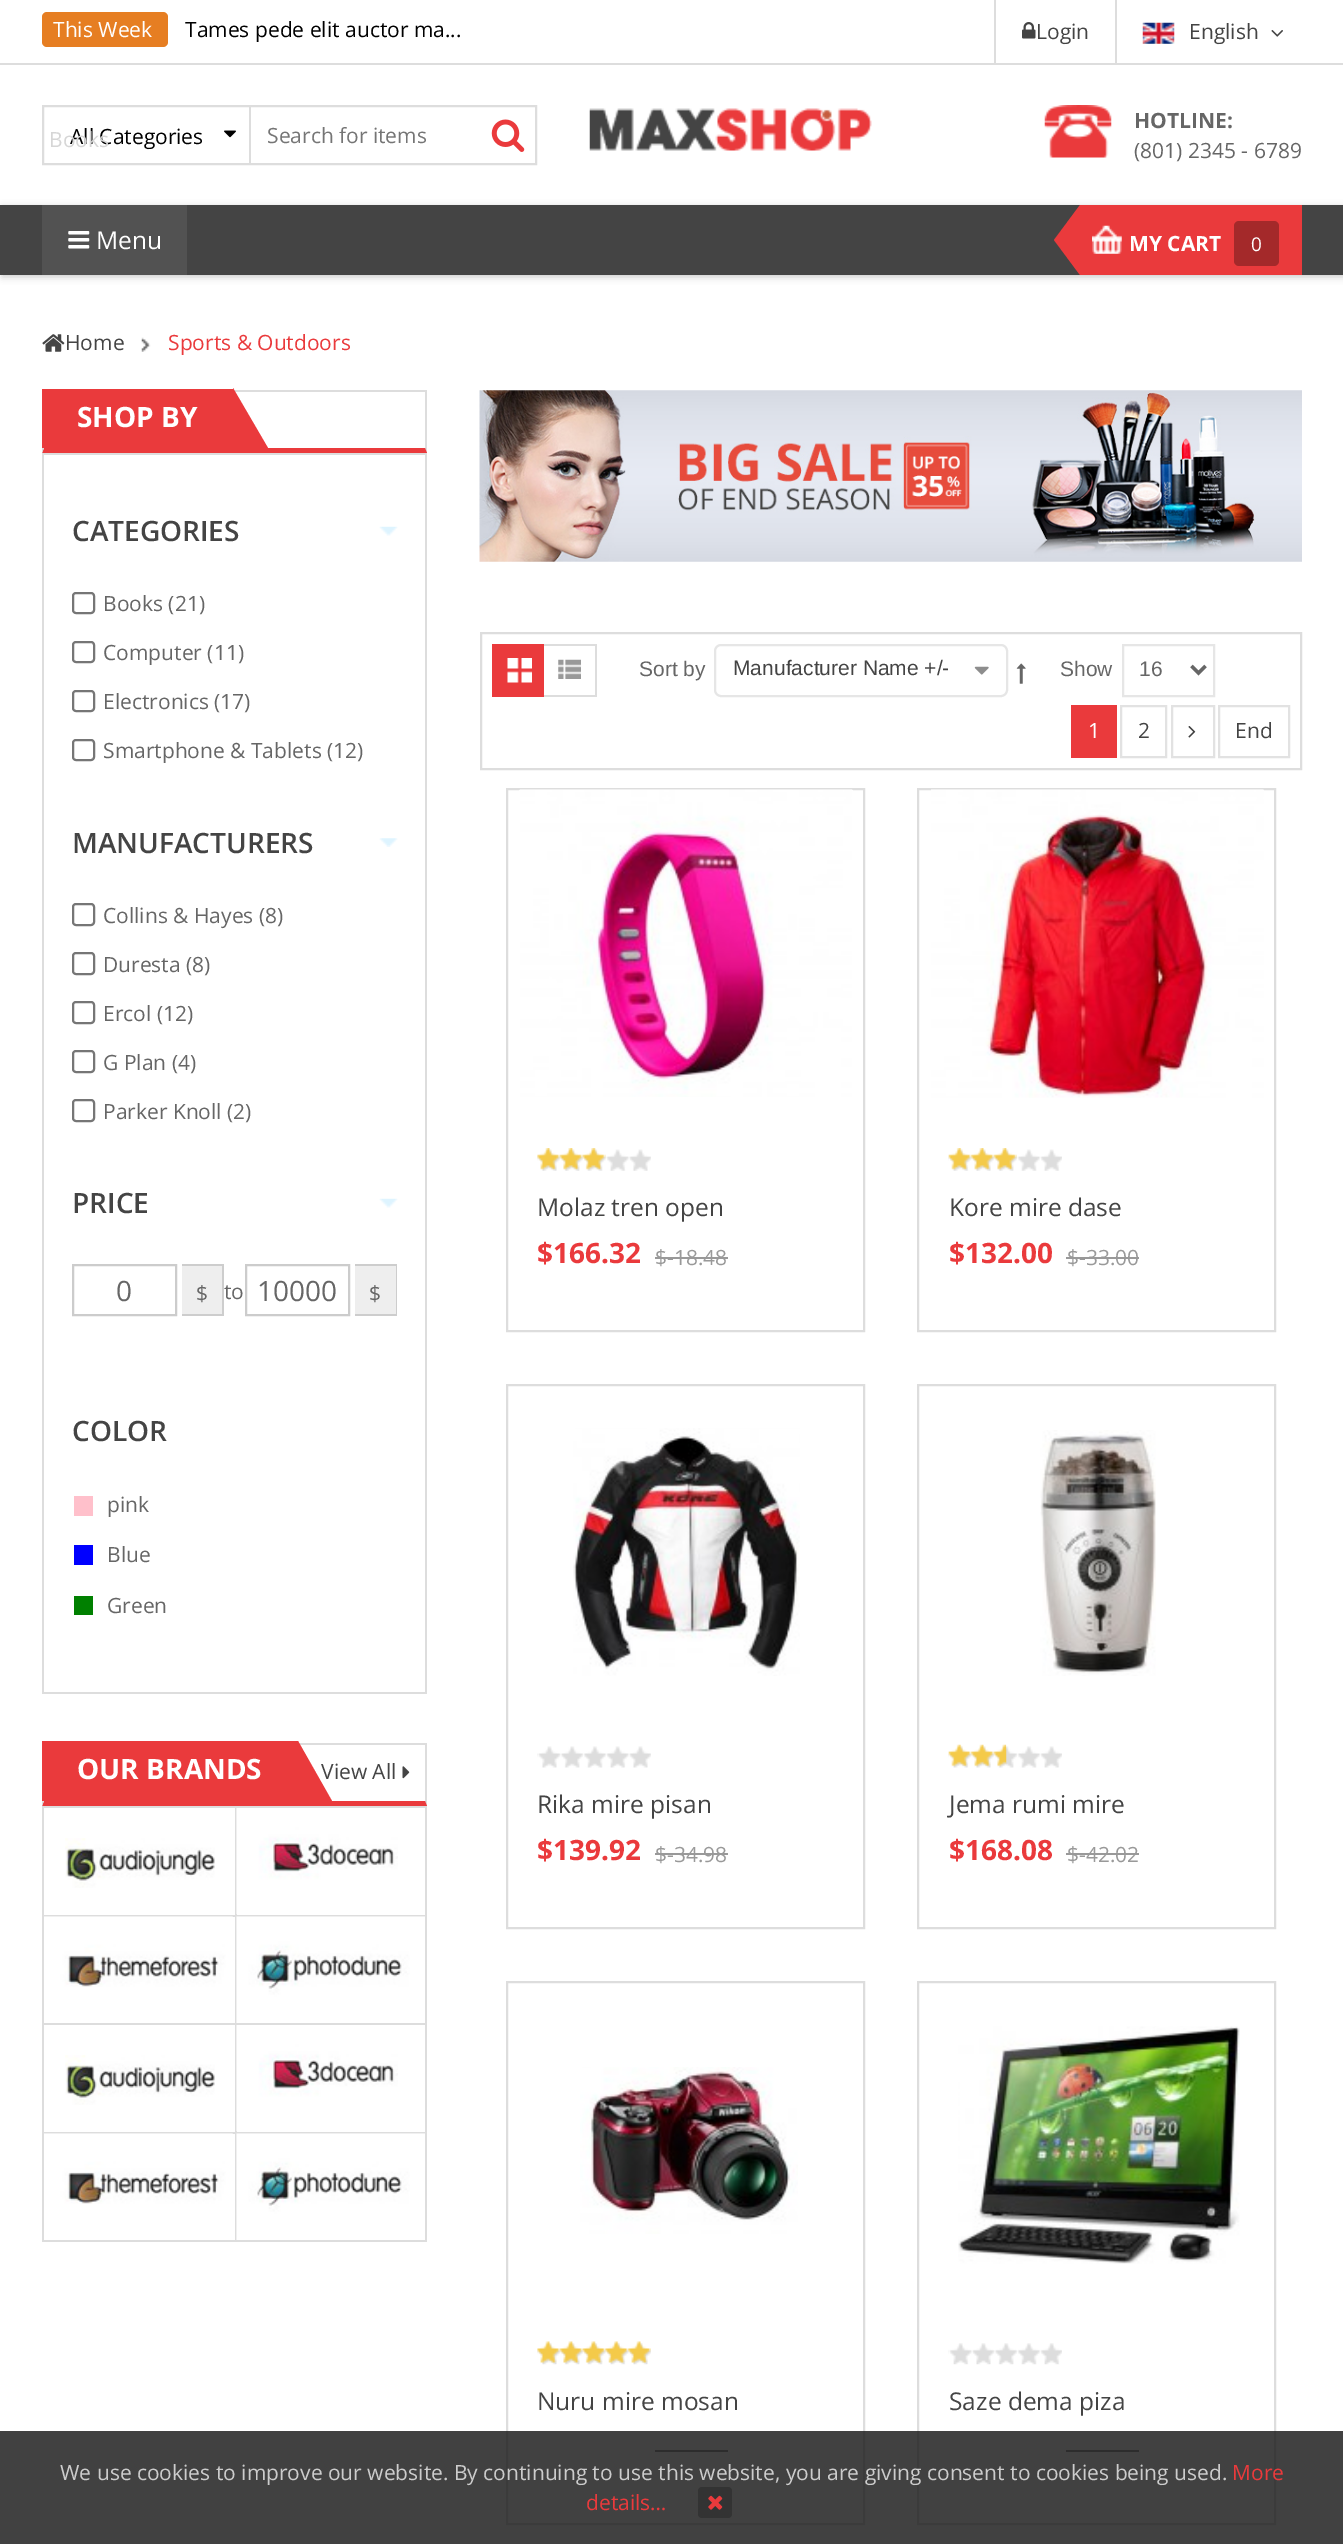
%!PS
<< /PageSize [1343 2544] /PageUsesTransparency true >> setpagedevice
/m/moveto load def
/l/rlineto load def
/z/closepath load def
/f/fill load def
/s/stroke load def
/w/setlinewidth load def
/C { dup -16 bitshift 255 div exch dup -8 bitshift 255 and 255 div exch 255 and 255 div setrgbcolor } def
/F { [ exch dup neg 0 0 3 -1 roll 0 0 ] selectfont } def
/T { moveto show } def
/R { rectfill } def
/A { dup .setfillconstantalpha .setstrokeconstantalpha } def
/Q { 5 dict begin { /r /h /w /y /x } { exch def } forall
  x r add y moveto x w add y 2 copy h add r arct x w add y h add x 1 index r arct
  x y h add x y r arct x y 2 copy exch w add exch r arct closepath end } def
/S { 12 dict begin { /a /b /q /h /w /y /x } { exch def } forall gsave /was 0 def
  9 -2 -9 { dup b mul 4 div /e exch def 1 sub .425 mul 2.718 exch exp 1 add a .99 .min exch div /now exch def
    1 1 now sub 1 was sub div sub A /was now def
    w h .min e 2 mul add 0 gt { x e sub y e sub w e 2 mul add h e 2 mul add
      q e add b .6 mul add w h .min 2 div e add .min 0 .max Q fill } if } for grestore end } def
/I { 5 dict begin { /h /w /y /x /name } { exch def } forall
  gsave x y translate w h scale
  w h 8 [w 0 0 h 0 0] name (r) file false 3 colorimage grestore end } def
0 .pushpdf14devicefilter
0 2544 translate 1 -1 scale
4 setmiterlimit
16#FFFFFF C
0 0 1343 2544 R
16#DDDDDD C
0 63 1343 2 R
16#E67E22 C
42 12 126 35 5 Q f
/OpenSans-Regular 21 F
16#FFFFFF C
(This Week) 53 37 T
16#000000 C
(Tames pede elit auctor ma...) 185 37 T
16#DDDDDD C
994 0 2 63 R
(1.rgb) 1022 22 14 17 I
16#444444 C
(Login) 1036 39 T
16#DDDDDD C
1115 0 2 63 R
(2.rgb) 1142 22 33 22 I
16#444444 C
(English) 1189 39 T
(3.rgb) 1271 30 12 7 I
16#DDDDDD C
2 w
43 106 493 58 rectstroke
249 107 2 56 R
16#000000 C
(All Categories) 70 144 T
(4.rgb) 224 130 12 8 I
16#D6D6D6 C
(Books) 49 147 T
16#757575 C
(Search for items) 267 143 T
(5.rgb) 491 119 34 33 I
(6.rgb) 589 108 283 43 I
(7.rgb) 1044 105 68 53 I
/OpenSans-Bold 21 F
16#666666 C
(HOTLINE:) 1134 128 T
/OpenSans-Regular 21 F
(\(801\) 2345 - 6789) 1134 158 T
16#000000 C
2 207 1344 70 0 3.5 .2 S
16#444444 C
0 205 1343 70 R
16#525252 C
42 205 145 70 R
(8.rgb) 68 231 22 18 I
/OpenSans-Regular 24.5 F
16#FFFFFF C
(Menu) 96 249 T
16#EA3A3C C
1080 205 222 70 R
1080 205 m 0 70 l -26 -35 l z f
(9.rgb) 1092 225 30 29 I
/OpenSans-Bold 21 F
16#FFFFFF C
(MY CART) 1129 251 T
16#A4292A C
1234 221 45 45 5 Q f
/OpenSans-Regular 19 F
16#FFFFFF C
(0) 1251 251 T
(10.rgb) 42 334 23 18 I
/OpenSans-Regular 21 F
16#444444 C
(Home) 65 350 T
(11.rgb) 141 337 10 15 I
16#EA3A3C C
(Sports & Outdoors) 168 350 T
16#DDDDDD C
234 390 193 2 R
427 390 m 0 63 l -2 -5 l 0 -56 l z f
16#EA3A3C C
427 453 m -385 0 l 2 -5 l 381 0 l z f
16#DDDDDD C
42 453 m 0 -63 l 2 2 l 0 56 l z f
16#EA3A3C C
42 389 191 59 R
/OpenSans-Bold 28 F
16#FFFFFF C
(SHOP BY) 77 427 T
16#EA3A3C C
233 448 m 0 -60 l 35 60 l z f
16#DDDDDD C
42 1692 385 2 R
42 453 385 2 R
425 453 2 1239 R
42 453 2 1239 R
/OpenSans-SemiBold 28 F
16#444444 C
(CATEGORIES) 72 541 T
(12.rgb) 379 526 19 10 I
16#767676 C
73 593 21 20 3 Q s
/OpenSans-Regular 21 F
16#666666 C
(Books \(21\)) 103 611 T
16#767676 C
73 642 21 20 3 Q s
16#666666 C
(Computer \(11\)) 103 660 T
16#767676 C
73 691 21 20 3 Q s
16#666666 C
(Electronics \(17\)) 103 709 T
16#767676 C
73 740 21 20 3 Q s
16#666666 C
(Smartphone & Tablets \(12\)) 103 758 T
/OpenSans-SemiBold 28 F
16#444444 C
(MANUFACTURERS) 72 853 T
(13.rgb) 379 838 19 9 I
16#767676 C
73 904 21 21 3 Q s
/OpenSans-Regular 21 F
16#666666 C
(Collins & Hayes \(8\)) 103 923 T
16#767676 C
73 953 21 21 3 Q s
16#666666 C
(Duresta \(8\)) 103 972 T
16#767676 C
73 1002 21 21 3 Q s
16#666666 C
(Ercol \(12\)) 103 1021 T
16#767676 C
73 1051 21 21 3 Q s
16#666666 C
(G Plan \(4\)) 103 1070 T
16#767676 C
73 1100 21 21 3 Q s
16#666666 C
(Parker Knoll \(2\)) 103 1119 T
/OpenSans-SemiBold 28 F
16#444444 C
(PRICE) 72 1213 T
(12.rgb) 379 1198 19 10 I
16#CCCCCC C
73 1265 103 50 rectstroke
/OpenSans-Regular 28 F
16#666666 C
(0) 116 1301 T
16#EEEEEE C
182 1266 40 48 R
16#CDCDCD C
182 1264 42 2 R
222 1264 2 52 R
182 1314 42 2 R
/OpenSans-Regular 21 F
16#666666 C
($) 196 1301 T
(to) 224 1299 T
16#CCCCCC C
246 1265 103 50 rectstroke
/OpenSans-Regular 28 F
16#666666 C
(10000) 257 1301 T
16#EEEEEE C
355 1266 41 48 R
16#CDCDCD C
355 1264 42 2 R
396 1264 1 52 R
355 1314 42 2 R
/OpenSans-Regular 21 F
16#666666 C
($) 369 1301 T
/OpenSans-SemiBold 28 F
16#444444 C
(COLOR) 72 1441 T
16#FFC0CB C
74 1496 19 20 R
/OpenSans-Regular 21 F
16#666666 C
(pink) 107 1512 T
16#0000FF C
74 1545 19 20 R
16#666666 C
(Blue) 107 1562 T
16#008000 C
74 1596 19 19 R
16#666666 C
(Green) 107 1613 T
16#DDDDDD C
299 1743 128 2 R
427 1743 m 0 63 l -2 -5 l 0 -56 l z f
16#EA3A3C C
427 1806 m -385 0 l 2 -5 l 381 0 l z f
16#DDDDDD C
42 1806 m 0 -63 l 2 2 l 0 56 l z f
16#EA3A3C C
42 1741 256 60 R
/OpenSans-Bold 28 F
16#FFFFFF C
(OUR BRANDS) 77 1779 T
16#EA3A3C C
298 1801 m 0 -60 l 34 60 l z f
16#DDDDDD C
425 1806 2 436 R
42 2240 385 2 R
42 1806 2 436 R
/OpenSans-Regular 21 F
16#444444 C
(View All) 321 1779 T
(14.rgb) 402 1766 8 13 I
16#DDDDDD C
42 1806 383 2 R
(15.rgb) 65 1838 150 50 I
235 1806 2 109 R
(16.rgb) 236 1808 162 107 I
42 1915 383 2 R
(17.rgb) 44 1916 189 71 I
235 1915 2 108 R
(18.rgb) 236 1916 189 107 I
42 2023 383 2 R
(15.rgb) 65 2055 150 50 I
235 2023 2 109 R
(16.rgb) 236 2025 162 107 I
42 2132 383 2 R
(17.rgb) 44 2133 189 71 I
235 2132 2 108 R
(18.rgb) 236 2133 189 107 I
(19.rgb) 479 390 823 172 I
481 633 820 136 rectstroke
16#EA3A3C C
494 646 50 49 R
(20.rgb) 507 658 25 25 I
492 644 52 2 R
492 695 52 2 R
492 644 2 53 R
(21.rgb) 558 659 23 20 I
16#DDDDDD C
544 644 53 2 R
595 644 2 53 R
544 695 53 2 R
/LiberationSans-Regular 21 F
16#666666 C
(Sort by) 639 676 T
16#E6E6E6 C
715 645 292 51 6 Q s
16#444444 C
(Manufacturer Name +/-) 733 675 T
(22.rgb) 974 666 15 9 I
(23.rgb) 1016 663 10 21 I
16#666666 C
(Show) 1060 676 T
16#E6E6E6 C
1123 645 91 51 rectstroke
16#666666 C
3.5 w
1191.5 666 m 7 7 l 7 -7 l s
(16) 1139 676 T
16#EA3A3C C
1071 705 46 53 R
/OpenSans-Regular 21 F
16#FFFFFF C
(1) 1088 738 T
16#E2E2E2 C
2 w
1121 706 45 51 rectstroke
16#444444 C
(2) 1138 738 T
16#E2E2E2 C
1172 706 42 51 rectstroke
(24.rgb) 1188 726 8 12 I
1219 706 70 51 rectstroke
16#444444 C
(End) 1235 738 T
16#DDDDDD C
507 789 357 542 rectstroke
(25.rgb) 519 789 334 308 I
(26.rgb) 537 1149 114 22 I
(27.rgb) 537 1148 69 22 I
/OpenSans-Regular 24.5 F
16#444444 C
(Molaz tren open) 537 1216 T
/OpenSans-Bold 28 F
16#EA3A3C C
($166.32) 537 1263 T
/OpenSans-Regular 21 F
16#999999 C
($-18.48) 655 1265 T
655 1257 73 2 R
16#DDDDDD C
918 789 357 542 rectstroke
(28.rgb) 931 789 333 309 I
(29.rgb) 948 1149 114 22 I
(30.rgb) 948 1148 69 22 I
/OpenSans-Regular 24.5 F
16#444444 C
(Kore mire dase) 949 1216 T
/OpenSans-Bold 28 F
16#EA3A3C C
($132.00) 949 1263 T
/OpenSans-Regular 21 F
16#999999 C
($-33.00) 1067 1265 T
1066 1257 73 2 R
16#DDDDDD C
507 1385 357 543 rectstroke
(31.rgb) 573 1428 227 248 I
(32.rgb) 537 1746 114 22 I
/OpenSans-Regular 24.5 F
16#444444 C
(Rika mire pisan) 537 1813 T
/OpenSans-Bold 28 F
16#EA3A3C C
($139.92) 537 1860 T
/OpenSans-Regular 21 F
16#999999 C
($-34.98) 655 1862 T
655 1853 73 2 R
16#DDDDDD C
918 1385 357 543 rectstroke
(33.rgb) 1040 1430 116 246 I
(34.rgb) 948 1746 114 22 I
(35.rgb) 948 1744 59 23 I
/OpenSans-Regular 24.5 F
16#444444 C
(Jema rumi mire) 949 1813 T
/OpenSans-Bold 28 F
16#EA3A3C C
($168.08) 949 1860 T
/OpenSans-Regular 21 F
16#999999 C
($-42.02) 1067 1862 T
1066 1853 73 2 R
16#DDDDDD C
507 1982 357 542 rectstroke
(36.rgb) 580 2067 218 167 I
(37.rgb) 537 2343 114 22 I
(38.rgb) 537 2341 114 22 I
/OpenSans-Regular 24.5 F
16#444444 C
(Nuru mire mosan) 537 2410 T
16#999999 C
655 2450 73 2 R
16#DDDDDD C
918 1982 357 542 rectstroke
(39.rgb) 958 2026 282 238 I
(40.rgb) 948 2343 114 22 I
16#444444 C
(Saze dema piza) 949 2410 T
16#999999 C
1066 2450 73 2 R
0.8 A
16#121212 C
0 2431 1343 113 R
/OpenSans-Regular 21 F
1 A
16#CCCCCC C
(We use cookies to improve our website. By continuing to use this website, you are giving consent to cookies being used.) 60 2480 T
16#EA3A3C C
(More) 1232 2480 T
(details…) 586 2510 T
16#333333 C
698 2487 34 31 4 Q f
(41.rgb) 708 2495 15 15 I
.poppdf14devicefilter showpage
